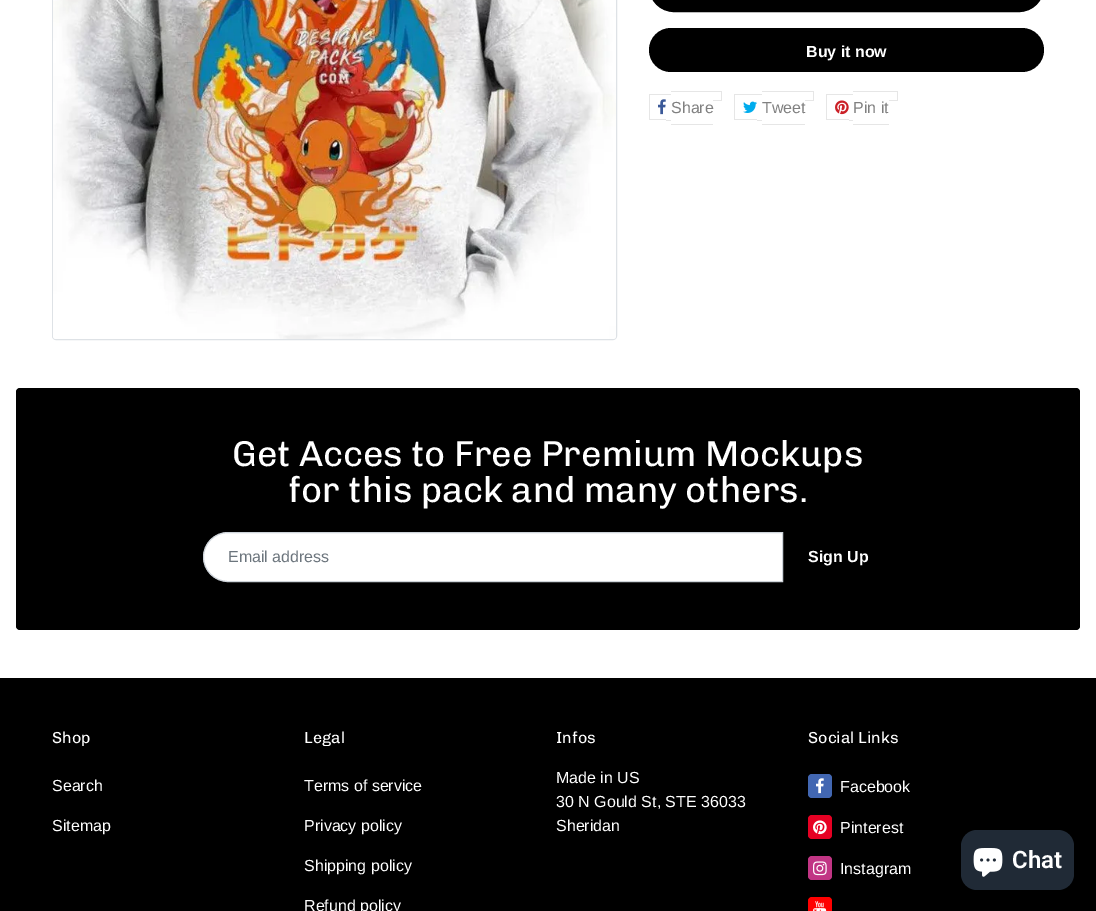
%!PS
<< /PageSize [1096 911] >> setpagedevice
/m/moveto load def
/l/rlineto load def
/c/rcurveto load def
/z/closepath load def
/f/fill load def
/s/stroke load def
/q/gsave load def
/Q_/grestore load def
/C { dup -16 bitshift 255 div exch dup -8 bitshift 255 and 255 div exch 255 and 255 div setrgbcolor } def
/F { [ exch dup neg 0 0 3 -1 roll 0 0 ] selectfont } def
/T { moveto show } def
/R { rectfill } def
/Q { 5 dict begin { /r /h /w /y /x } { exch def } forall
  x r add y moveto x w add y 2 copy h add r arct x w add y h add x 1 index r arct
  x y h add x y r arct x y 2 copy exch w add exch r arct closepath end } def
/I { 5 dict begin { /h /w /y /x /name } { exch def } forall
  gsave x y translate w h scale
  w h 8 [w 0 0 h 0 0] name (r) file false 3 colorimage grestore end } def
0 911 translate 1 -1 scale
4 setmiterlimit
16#FFFFFF C
0 0 1096 911 R
16#DEE2E6 C
52.5 -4.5 564 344 3.5 Q s
(1.rgb) 53 0 563 339 I
16#000000 C
649.5 -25.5 394 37 24.5 Q q f Q_
s
649 28 395 44 22 Q f
/LiberationSans-Bold 16 F
16#FFFFFF C
(Buy it now) 806 57 T
16#E6E6E6 C
649 94 22 1 R
649 119 17 1 R
649 94 1 26 R
666 120 5 1 R
671 91 51 1 R
671 124 42 1 R
721 91 1 10 R
713 100 9 1 R
(2.rgb) 658 99 8 16 I
/LiberationSans-Regular 16 F
16#808080 C
(Share) 671 113 T
16#E6E6E6 C
734 94 28 1 R
734 119 23 1 R
734 94 1 26 R
757 120 5 1 R
762 91 52 1 R
762 124 43 1 R
813 91 1 10 R
805 100 9 1 R
(3.rgb) 743 101 14 12 I
16#808080 C
(Tweet) 762 113 T
16#E6E6E6 C
826 94 27 1 R
826 119 23 1 R
826 94 1 26 R
849 120 4 1 R
853 91 45 1 R
853 124 36 1 R
897 91 1 10 R
889 100 9 1 R
(4.rgb) 835 100 14 15 I
16#808080 C
(Pin it) 853 113 T
16#000000 C
16 388 1064 242 4 Q f
/Chivo-Regular 36 F
16#FFFFFF C
(Get Acces to Free Premium Mockups) 232 466 T
(for this pack and many others.) 288 502 T
228 532.5 m 554.5 0 l 0 49 l -554.5 0 l -13.5 0 -24.5 -11 -24.5 -24.5 c 0 -13.5 11 -24.5 24.5 -24.5 c z q f Q_
16#CED4DA C
s
/LiberationSans-Regular 16 F
16#6C757D C
(Email address) 228 562 T
/LiberationSans-Bold 16 F
16#FFFFFF C
(Sign Up) 808 562 T
16#000000 C
0 678 1096 233 R
/Chivo-Regular 16 F
16#FFFFFF C
(Shop) 52 743 T
/LiberationSans-Regular 16 F
(Search) 52 791 T
(Sitemap) 52 831 T
/Chivo-Regular 16 F
(Legal) 304 743 T
/LiberationSans-Regular 16 F
(Terms of service) 304 791 T
(Privacy policy) 304 831 T
(Shipping policy) 304 871 T
(Refund policy) 304 911 T
/Chivo-Regular 16 F
(Infos) 556 743 T
/LiberationSans-Regular 16 F
(Made in US) 556 783 T
(30 N Gould St, STE 36033) 556 807 T
(Sheridan) 556 831 T
/Chivo-Regular 16 F
(Social Links) 808 743 T
16#4267B2 C
808 774 24 24 4 Q f
(5.rgb) 816 778 8 16 I
/LiberationSans-Regular 16 F
16#FFFFFF C
(Facebook) 840 792 T
16#E60023 C
808 815 24 24 4 Q f
(6.rgb) 813 820 14 15 I
16#FFFFFF C
(Pinterest) 840 833 T
16#C13584 C
808 856 24 24 4 Q f
(7.rgb) 813 861 14 15 I
16#FFFFFF C
(Instagram) 840 874 T
16#FF0000 C
808 897 24 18 4 Q f
(8.rgb) 813 901 14 10 I
16#202A36 C
961 830 113 60 16 Q f
(9.rgb) 973 848 30 29 I
/Roboto-SemiBold 24 F
16#FFFFFF C
(Chat) 1012 868 T
showpage
